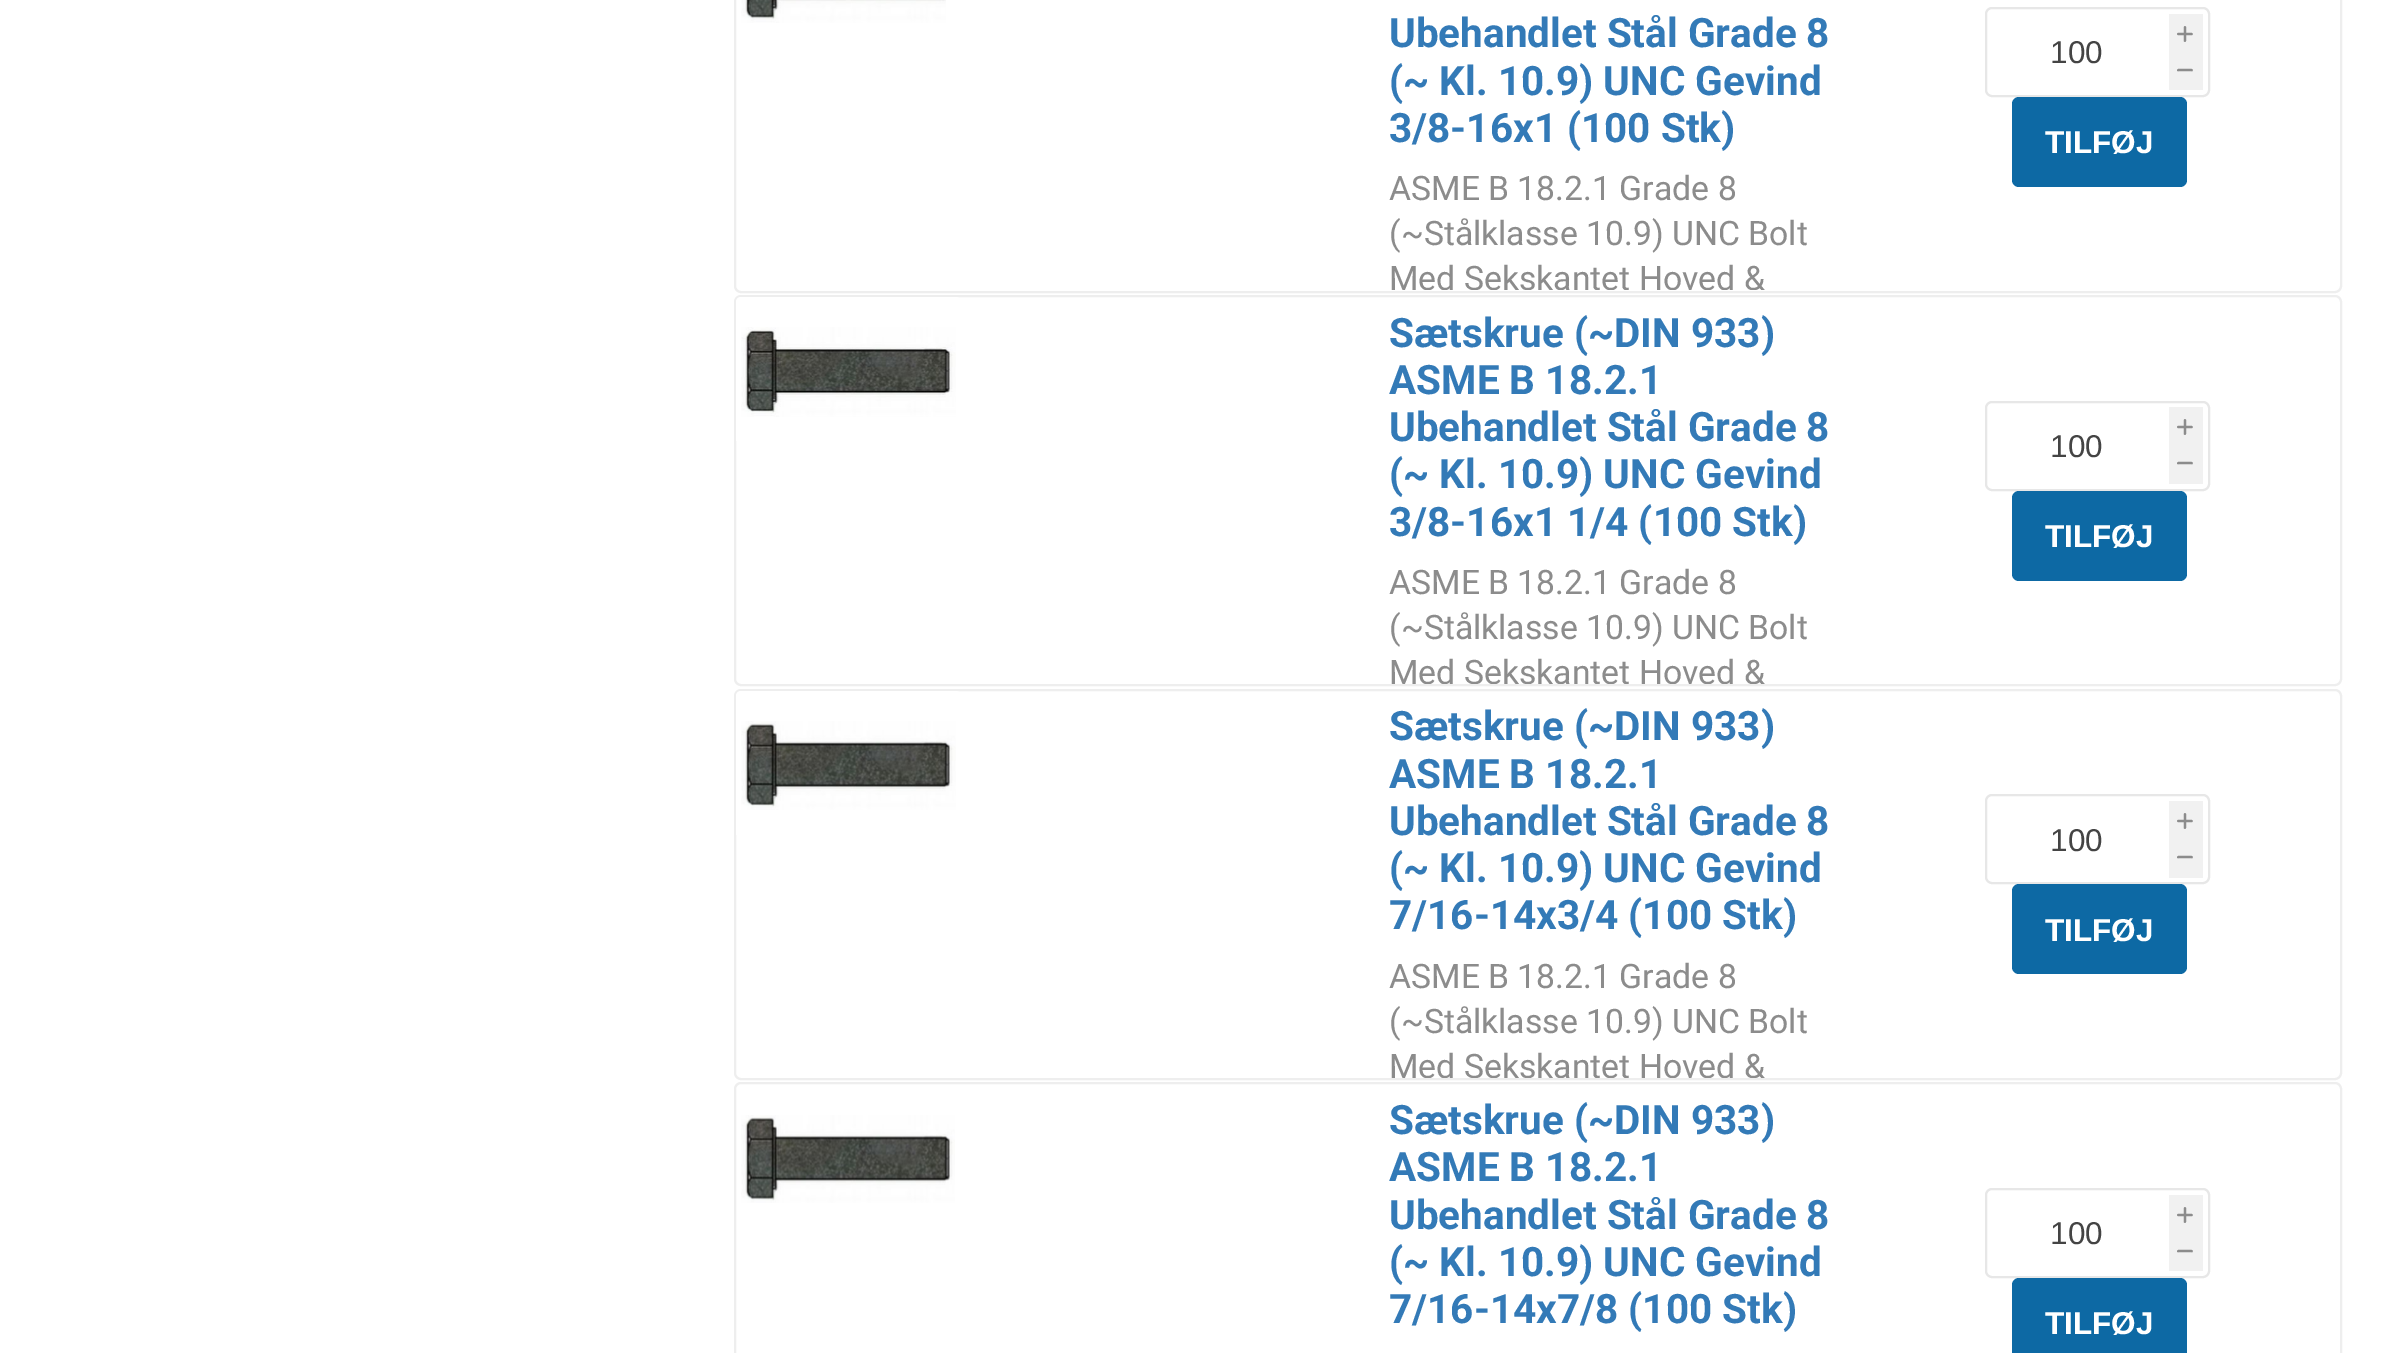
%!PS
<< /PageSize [2387 1353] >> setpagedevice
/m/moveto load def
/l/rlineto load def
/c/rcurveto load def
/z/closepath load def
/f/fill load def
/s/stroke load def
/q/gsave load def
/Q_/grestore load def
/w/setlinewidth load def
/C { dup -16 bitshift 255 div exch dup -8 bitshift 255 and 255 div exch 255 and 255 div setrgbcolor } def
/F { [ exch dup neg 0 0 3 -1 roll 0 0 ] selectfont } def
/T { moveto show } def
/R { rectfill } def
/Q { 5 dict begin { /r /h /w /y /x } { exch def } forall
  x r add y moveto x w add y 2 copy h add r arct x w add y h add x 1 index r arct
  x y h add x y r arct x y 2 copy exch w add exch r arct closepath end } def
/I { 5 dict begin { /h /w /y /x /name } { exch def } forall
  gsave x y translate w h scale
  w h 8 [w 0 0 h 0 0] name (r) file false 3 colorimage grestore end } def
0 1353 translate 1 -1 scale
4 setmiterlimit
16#FFFFFF C
0 0 2387 1353 R
16#EEEEEE C
2 w
735 -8 1606 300 6 Q s
(1.rgb) 741 0 205 23 I
/Roboto-Bold 40.5 F
16#337AB7 C
(Ubehandlet Stål Grade 8) 1389 47 T
(\(~ Kl. 10.9\) UNC Gevind) 1389 95 T
(3/8-16x1 \(100 Stk\)) 1389 142 T
16#E7E7E7 C
1986 8 223 88 6 Q s
16#F1F1F1 C
2169 14 34 76 R
/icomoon-Regular 16 F
16#8C8C8C C
(i) 2177 41 T
/LiberationSans-Regular 31.5 F
16#444444 C
(100) 2050 63 T
/icomoon-Regular 16 F
16#8C8C8C C
(h) 2177 77 T
16#0D69A4 C
2012 97 175 90 7 Q f
/LiberationSans-Bold 31.5 F
16#FFFFFF C
(TILFØJ) 2045 153 T
/Roboto-Regular 33.75 F
16#8C8C8C C
(ASME B 18.2.1 Grade 8) 1389 200 T
(\(~Stålklasse 10.9\) UNC Bolt) 1389 245 T
q
736 -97 1604 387 5 Q clip newpath
(Med Sekskantet Hoved &) 1389 290 T
Q_
16#EEEEEE C
735 296 1606 389 6 Q s
16#FFFFFF C
741 297 m 215 0 l 3 0 5 2 5 5 c 0 139 l -225 0 l 0 -139 l 0 -3 2 -5 5 -5 c z f
(2.rgb) 741 327 215 90 I
/Roboto-Bold 40.5 F
16#337AB7 C
(Sætskrue \(~DIN 933\)) 1389 347 T
(ASME B 18.2.1) 1389 394 T
(Ubehandlet Stål Grade 8) 1389 441 T
(\(~ Kl. 10.9\) UNC Gevind) 1389 488 T
(3/8-16x1 1/4 \(100 Stk\)) 1389 536 T
16#E7E7E7 C
1986 402 223 88 6 Q s
16#F1F1F1 C
2169 407 34 77 R
/icomoon-Regular 16 F
16#8C8C8C C
(i) 2177 434 T
/LiberationSans-Regular 31.5 F
16#444444 C
(100) 2050 457 T
/icomoon-Regular 16 F
16#8C8C8C C
(h) 2177 470 T
16#0D69A4 C
2012 491 175 90 7 Q f
/LiberationSans-Bold 31.5 F
16#FFFFFF C
(TILFØJ) 2045 547 T
/Roboto-Regular 33.75 F
16#8C8C8C C
(ASME B 18.2.1 Grade 8) 1389 594 T
(\(~Stålklasse 10.9\) UNC Bolt) 1389 639 T
q
736 297 1604 387 5 Q clip newpath
(Med Sekskantet Hoved &) 1389 684 T
Q_
16#EEEEEE C
735 690 1606 389 6 Q s
16#FFFFFF C
741 691 m 215 0 l 3 0 5 2 5 5 c 0 139 l -225 0 l 0 -139 l 0 -3 2 -5 5 -5 c z f
(3.rgb) 741 721 215 89 I
/Roboto-Bold 40.5 F
16#337AB7 C
(Sætskrue \(~DIN 933\)) 1389 740 T
(ASME B 18.2.1) 1389 788 T
(Ubehandlet Stål Grade 8) 1389 835 T
(\(~ Kl. 10.9\) UNC Gevind) 1389 882 T
(7/16-14x3/4 \(100 Stk\)) 1389 929 T
16#E7E7E7 C
1986 795 223 88 6 Q s
16#F1F1F1 C
2169 801 34 77 R
/icomoon-Regular 16 F
16#8C8C8C C
(i) 2177 828 T
/LiberationSans-Regular 31.5 F
16#444444 C
(100) 2050 851 T
/icomoon-Regular 16 F
16#8C8C8C C
(h) 2177 864 T
16#0D69A4 C
2012 884 175 90 7 Q f
/LiberationSans-Bold 31.5 F
16#FFFFFF C
(TILFØJ) 2045 941 T
/Roboto-Regular 33.75 F
16#8C8C8C C
(ASME B 18.2.1 Grade 8) 1389 988 T
(\(~Stålklasse 10.9\) UNC Bolt) 1389 1033 T
q
736 691 1604 387 5 Q clip newpath
(Med Sekskantet Hoved &) 1389 1078 T
Q_
16#EEEEEE C
735 1083 1606 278 6 Q s
(4.rgb) 741 1115 214 88 I
/Roboto-Bold 40.5 F
16#337AB7 C
(Sætskrue \(~DIN 933\)) 1389 1134 T
(ASME B 18.2.1) 1389 1181 T
(Ubehandlet Stål Grade 8) 1389 1229 T
(\(~ Kl. 10.9\) UNC Gevind) 1389 1276 T
(7/16-14x7/8 \(100 Stk\)) 1389 1323 T
16#E7E7E7 C
1986 1189 223 88 6 Q s
16#F1F1F1 C
2169 1195 34 76 R
/icomoon-Regular 16 F
16#8C8C8C C
(i) 2177 1222 T
/LiberationSans-Regular 31.5 F
16#444444 C
(100) 2050 1244 T
/icomoon-Regular 16 F
16#8C8C8C C
(h) 2177 1258 T
16#0D69A4 C
2012 1278 175 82 7 Q f
/LiberationSans-Bold 31.5 F
16#FFFFFF C
(TILFØJ) 2045 1334 T
showpage
